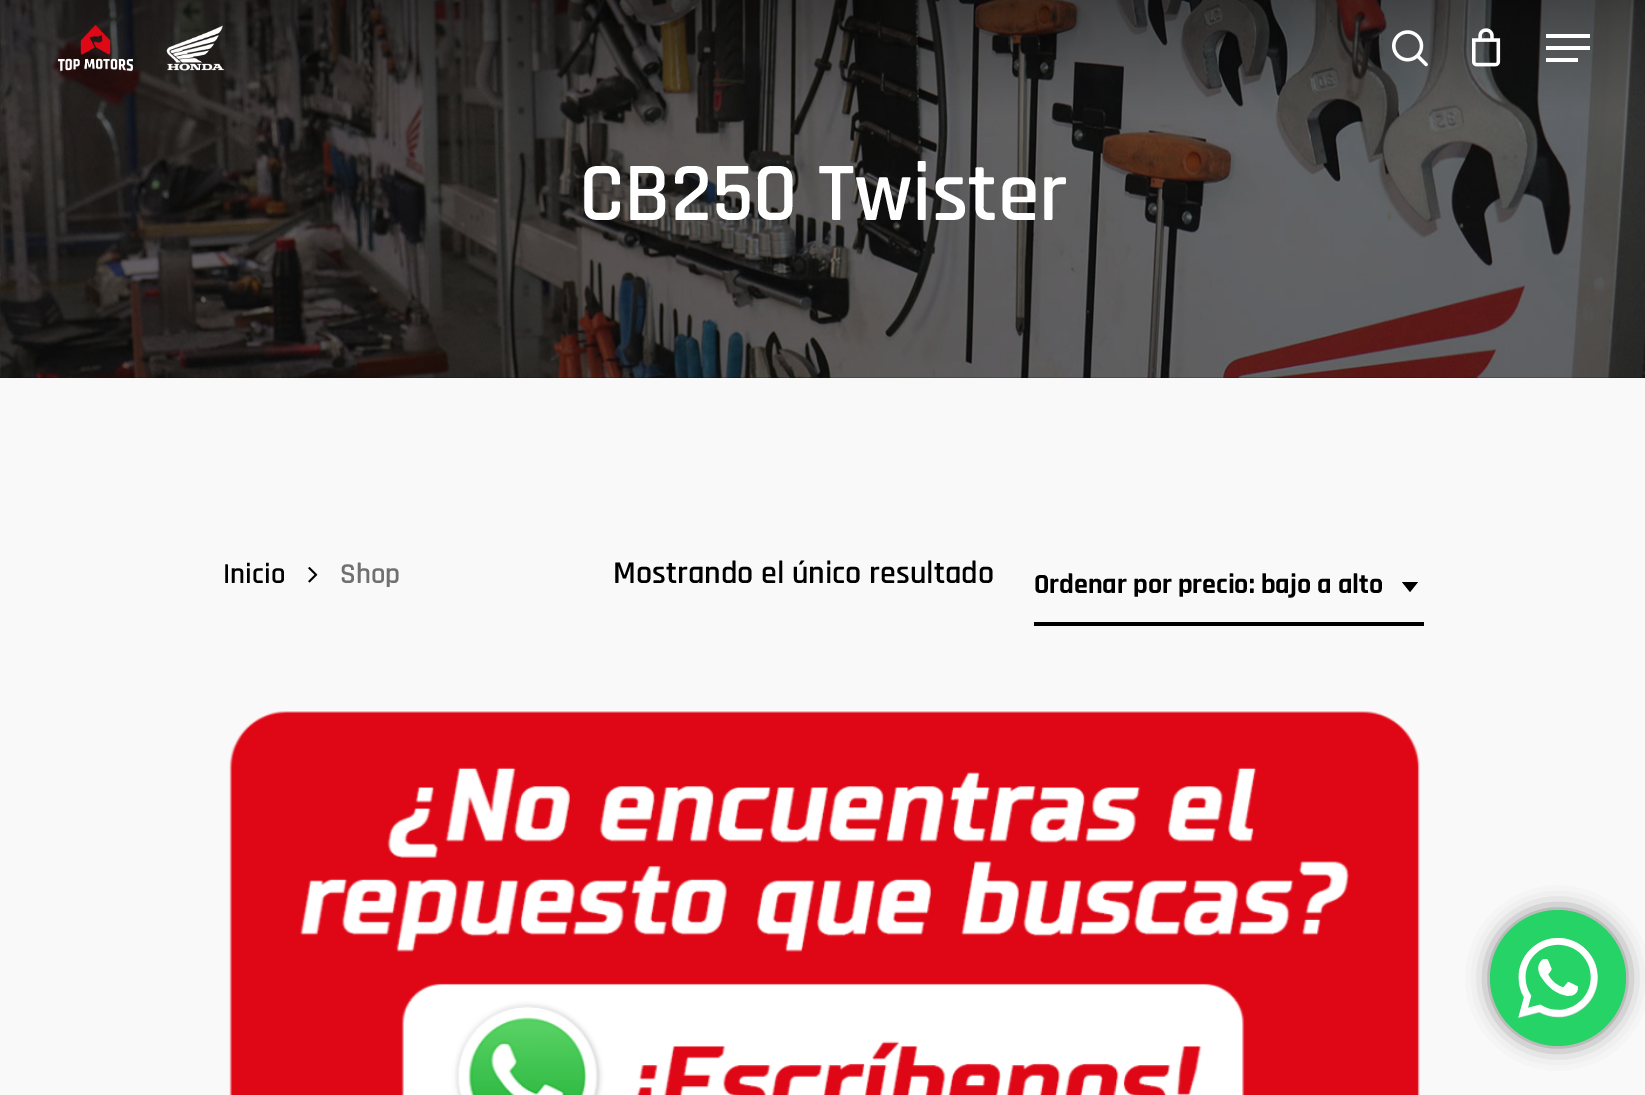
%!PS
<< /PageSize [1645 1095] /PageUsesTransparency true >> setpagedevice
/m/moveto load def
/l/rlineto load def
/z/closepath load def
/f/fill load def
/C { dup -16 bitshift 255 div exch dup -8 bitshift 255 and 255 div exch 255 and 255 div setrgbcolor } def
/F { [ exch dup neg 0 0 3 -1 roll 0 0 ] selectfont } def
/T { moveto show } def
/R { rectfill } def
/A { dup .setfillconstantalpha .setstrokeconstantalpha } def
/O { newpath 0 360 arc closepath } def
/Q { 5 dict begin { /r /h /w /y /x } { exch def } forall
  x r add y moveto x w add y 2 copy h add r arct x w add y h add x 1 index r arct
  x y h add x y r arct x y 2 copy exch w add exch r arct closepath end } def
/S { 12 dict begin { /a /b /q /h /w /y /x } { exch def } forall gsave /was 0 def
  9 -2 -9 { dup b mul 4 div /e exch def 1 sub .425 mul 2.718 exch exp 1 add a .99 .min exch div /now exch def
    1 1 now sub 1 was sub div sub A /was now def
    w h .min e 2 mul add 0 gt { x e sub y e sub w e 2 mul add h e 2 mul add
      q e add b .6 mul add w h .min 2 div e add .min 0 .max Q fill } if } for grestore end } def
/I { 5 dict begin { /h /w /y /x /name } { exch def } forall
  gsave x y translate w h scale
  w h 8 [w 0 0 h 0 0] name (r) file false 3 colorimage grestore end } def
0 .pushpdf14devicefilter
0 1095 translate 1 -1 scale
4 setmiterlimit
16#F9F9F9 C
0 0 1645 1095 R
(4.rgb) 0 0 1645 378 I
(1.rgb) 58 24 167 48 I
(2.rgb) 1392 30 36 37 I
(3.rgb) 1472 28 29 39 I
16#FFFFFF C
1546 34 44 4 R
1546 58 32 4 R
1546 46 44 4 R
/Rajdhani-SemiBold 84 F
(CB250 Twister) 579 220 T
/Rajdhani-SemiBold 29 F
16#000000 C
(Inicio) 223 583 T
(5.rgb) 308 567 10 16 I
16#707070 C
(Shop) 340 583 T
/Rajdhani-SemiBold 32 F
16#000000 C
(Mostrando el único resultado) 613 583 T
1034 622 390 4 R
/Rajdhani-Bold 28 F
(Ordenar por precio: bajo a alto) 1034 593 T
1402 582 m 16 0 l -8 10 l z f
(6.rgb) 229 711 1191 384 I
1490 910 136 136 68 11 .5 S
16#25D366 C
1558 978 68 O f
(7.rgb) 1518 938 80 80 I
.poppdf14devicefilter showpage
